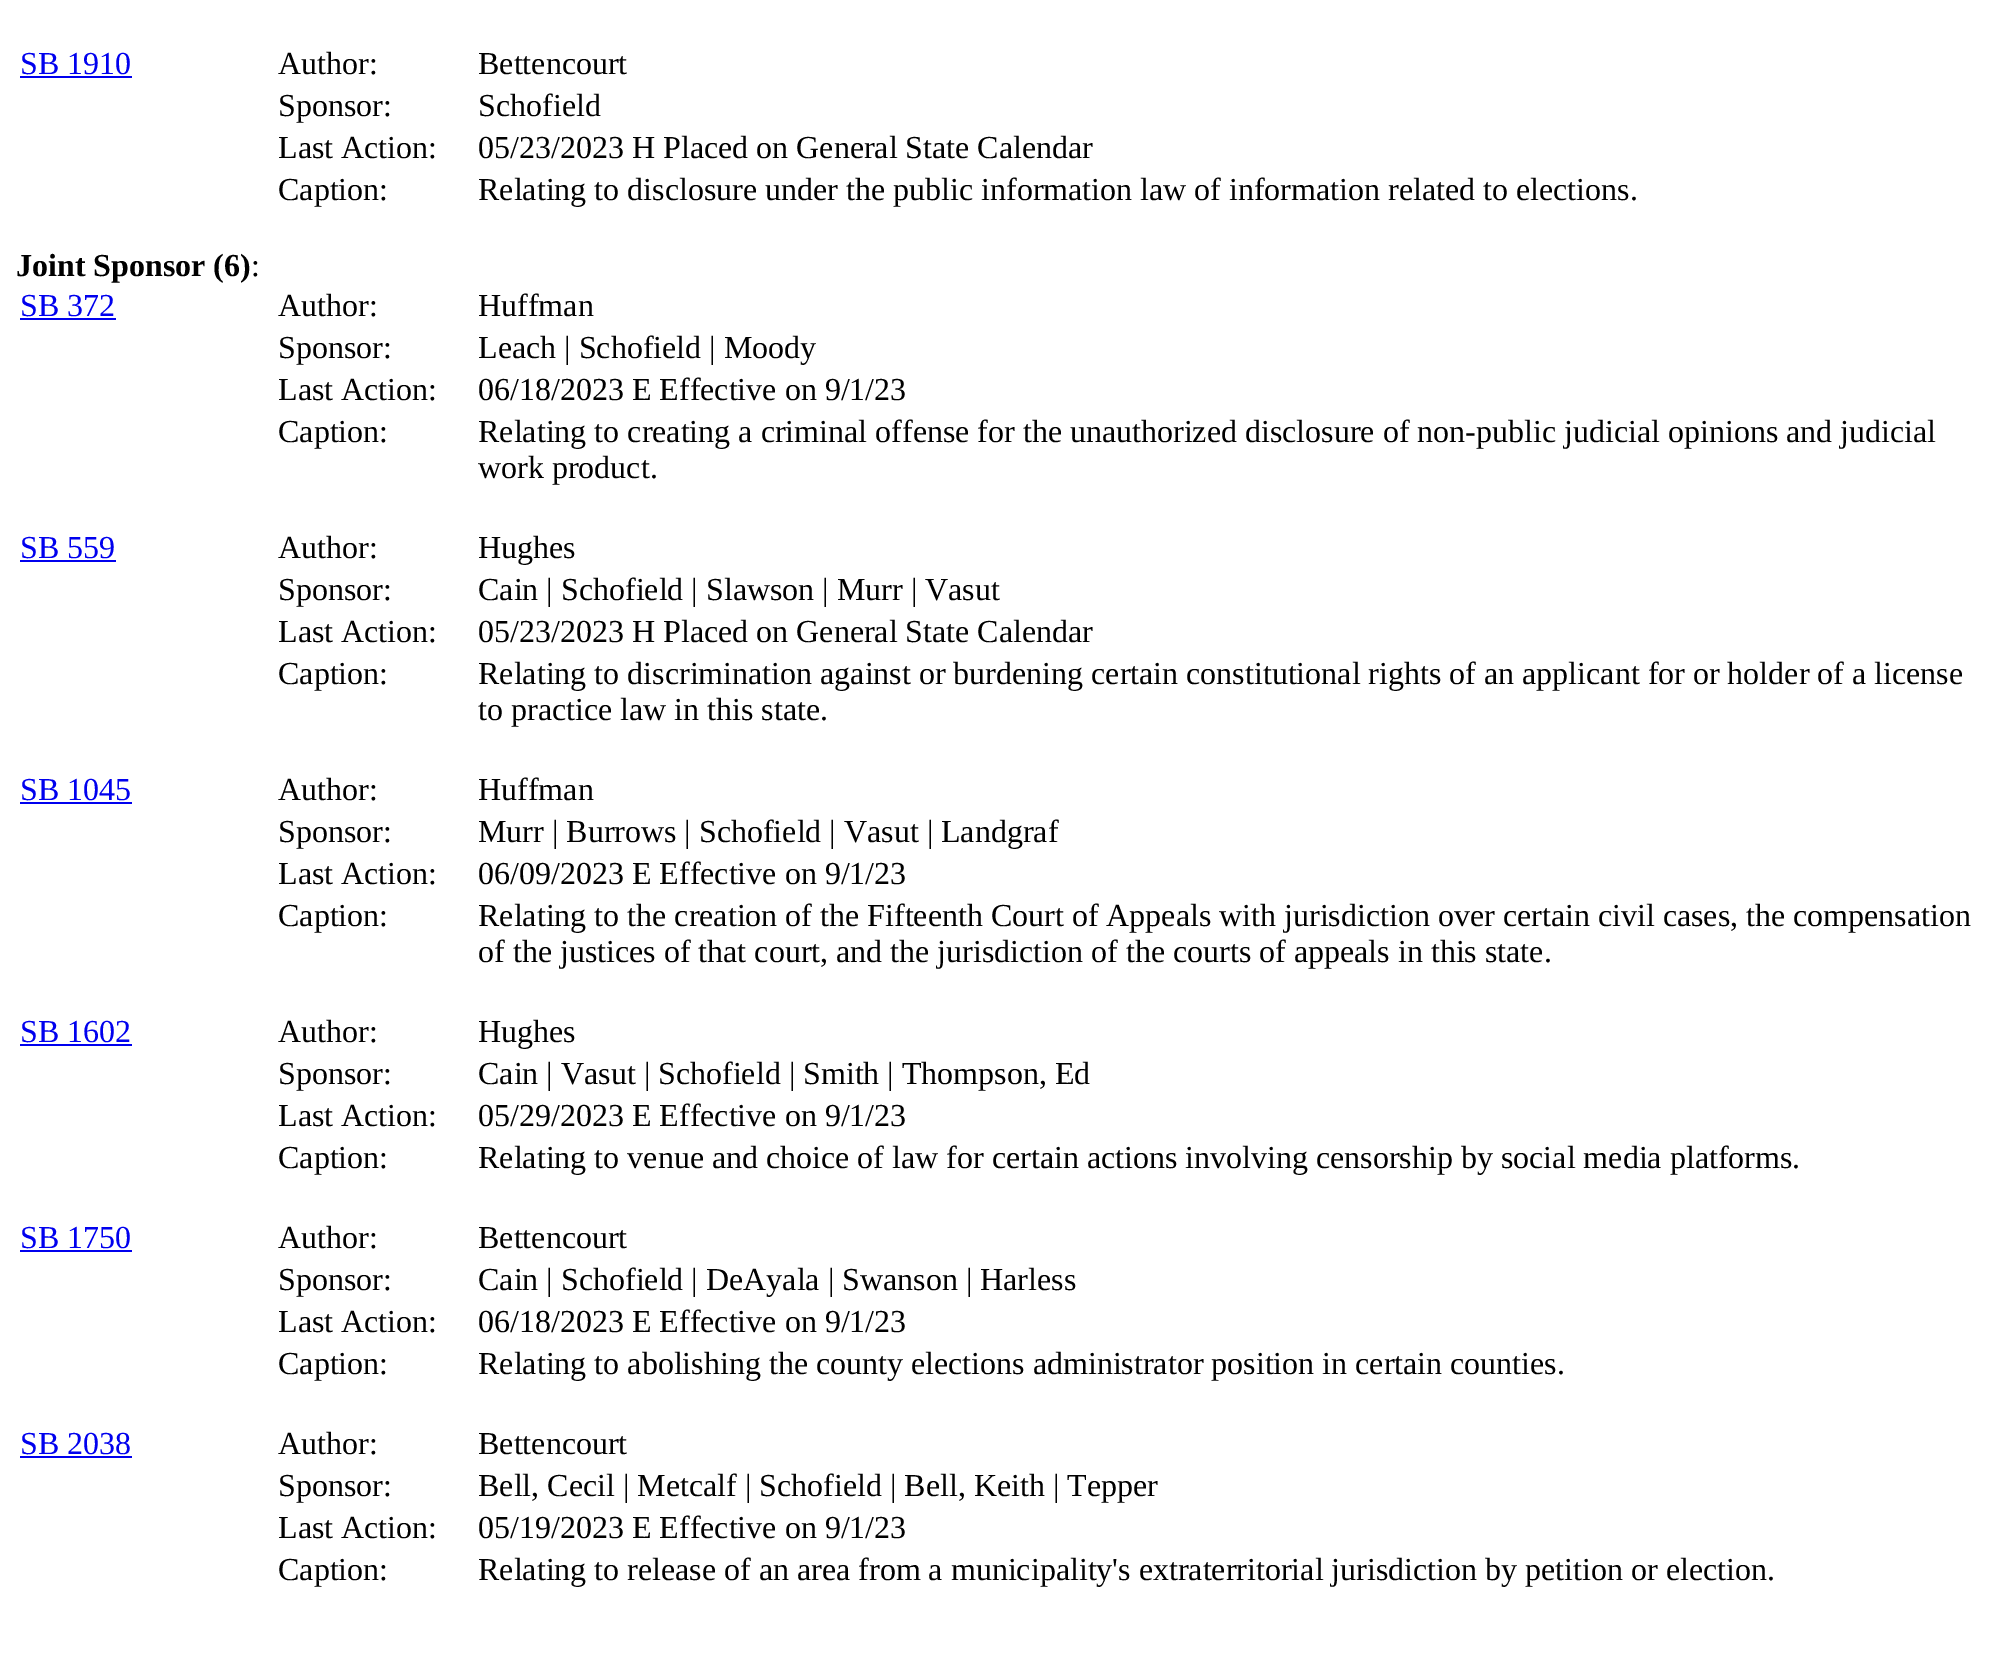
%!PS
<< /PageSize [2011 1659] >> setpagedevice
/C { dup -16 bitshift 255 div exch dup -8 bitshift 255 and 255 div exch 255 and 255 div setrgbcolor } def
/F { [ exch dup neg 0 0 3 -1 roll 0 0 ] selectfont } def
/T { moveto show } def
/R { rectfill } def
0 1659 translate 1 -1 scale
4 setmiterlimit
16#FFFFFF C
0 0 2011 1659 R
/LiberationSerif-Regular 32 F
16#0000EE C
(SB 1910) 20 74 T
20 76 112 2 R
16#000000 C
(Author:) 278 74 T
(Bettencourt) 478 74 T
(Sponsor:) 278 116 T
(Schofield) 478 116 T
(Last Action:) 278 158 T
(05/23/2023 H Placed on General State Calendar) 478 158 T
(Caption:) 278 200 T
(Relating to disclosure under the public information law of information related to elections.) 478 200 T
/LiberationSerif-Bold 32 F
(Joint Sponsor \(6\)) 16 276 T
/LiberationSerif-Regular 32 F
(:) 251 276 T
16#0000EE C
(SB 372) 20 316 T
20 318 96 2 R
16#000000 C
(Author:) 278 316 T
(Huffman) 478 316 T
(Sponsor:) 278 358 T
(Leach | Schofield | Moody) 478 358 T
(Last Action:) 278 400 T
(06/18/2023 E Effective on 9/1/23) 478 400 T
(Caption:) 278 442 T
(Relating to creating a criminal offense for the unauthorized disclosure of non-public judicial opinions and judicial) 478 442 T
(work product.) 478 478 T
16#0000EE C
(SB 559) 20 558 T
20 560 96 2 R
16#000000 C
(Author:) 278 558 T
(Hughes) 478 558 T
(Sponsor:) 278 600 T
(Cain | Schofield | Slawson | Murr | Vasut) 478 600 T
(Last Action:) 278 642 T
(05/23/2023 H Placed on General State Calendar) 478 642 T
(Caption:) 278 684 T
(Relating to discrimination against or burdening certain constitutional rights of an applicant for or holder of a license) 478 684 T
(to practice law in this state.) 478 720 T
16#0000EE C
(SB 1045) 20 800 T
20 802 112 2 R
16#000000 C
(Author:) 278 800 T
(Huffman) 478 800 T
(Sponsor:) 278 842 T
(Murr | Burrows | Schofield | Vasut | Landgraf) 478 842 T
(Last Action:) 278 884 T
(06/09/2023 E Effective on 9/1/23) 478 884 T
(Caption:) 278 926 T
(Relating to the creation of the Fifteenth Court of Appeals with jurisdiction over certain civil cases, the compensation) 478 926 T
(of the justices of that court, and the jurisdiction of the courts of appeals in this state.) 478 962 T
16#0000EE C
(SB 1602) 20 1042 T
20 1044 112 2 R
16#000000 C
(Author:) 278 1042 T
(Hughes) 478 1042 T
(Sponsor:) 278 1084 T
(Cain | Vasut | Schofield | Smith | Thompson, Ed) 478 1084 T
(Last Action:) 278 1126 T
(05/29/2023 E Effective on 9/1/23) 478 1126 T
(Caption:) 278 1168 T
(Relating to venue and choice of law for certain actions involving censorship by social media platforms.) 478 1168 T
16#0000EE C
(SB 1750) 20 1248 T
20 1250 112 2 R
16#000000 C
(Author:) 278 1248 T
(Bettencourt) 478 1248 T
(Sponsor:) 278 1290 T
(Cain | Schofield | DeAyala | Swanson | Harless) 478 1290 T
(Last Action:) 278 1332 T
(06/18/2023 E Effective on 9/1/23) 478 1332 T
(Caption:) 278 1374 T
(Relating to abolishing the county elections administrator position in certain counties.) 478 1374 T
16#0000EE C
(SB 2038) 20 1454 T
20 1456 112 2 R
16#000000 C
(Author:) 278 1454 T
(Bettencourt) 478 1454 T
(Sponsor:) 278 1496 T
(Bell, Cecil | Metcalf | Schofield | Bell, Keith | Tepper) 478 1496 T
(Last Action:) 278 1538 T
(05/19/2023 E Effective on 9/1/23) 478 1538 T
(Caption:) 278 1580 T
(Relating to release of an area from a municipality's extraterritorial jurisdiction by petition or election.) 478 1580 T
showpage
